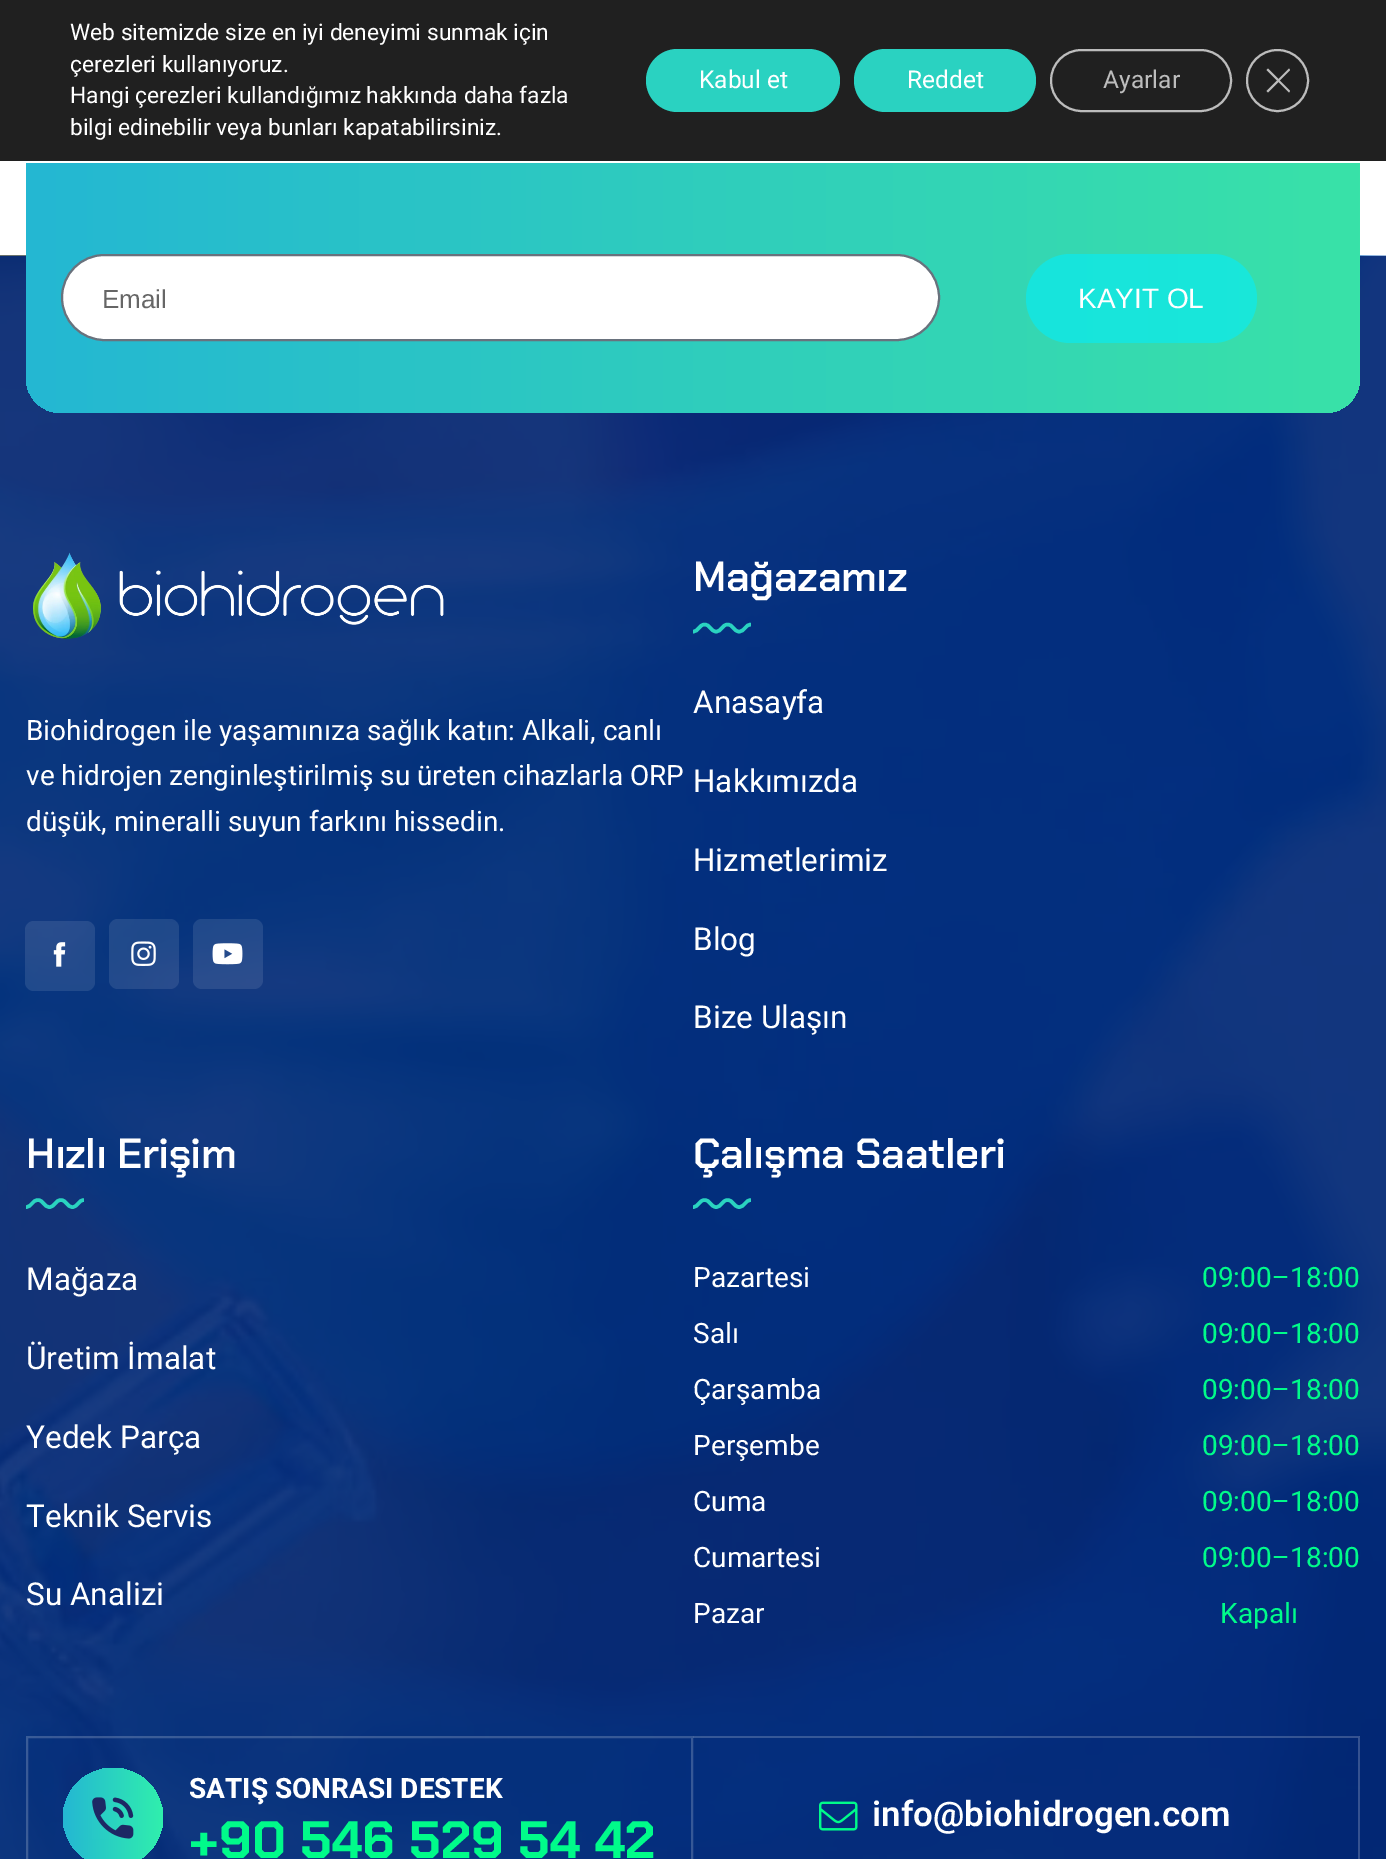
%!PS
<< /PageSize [1386 1859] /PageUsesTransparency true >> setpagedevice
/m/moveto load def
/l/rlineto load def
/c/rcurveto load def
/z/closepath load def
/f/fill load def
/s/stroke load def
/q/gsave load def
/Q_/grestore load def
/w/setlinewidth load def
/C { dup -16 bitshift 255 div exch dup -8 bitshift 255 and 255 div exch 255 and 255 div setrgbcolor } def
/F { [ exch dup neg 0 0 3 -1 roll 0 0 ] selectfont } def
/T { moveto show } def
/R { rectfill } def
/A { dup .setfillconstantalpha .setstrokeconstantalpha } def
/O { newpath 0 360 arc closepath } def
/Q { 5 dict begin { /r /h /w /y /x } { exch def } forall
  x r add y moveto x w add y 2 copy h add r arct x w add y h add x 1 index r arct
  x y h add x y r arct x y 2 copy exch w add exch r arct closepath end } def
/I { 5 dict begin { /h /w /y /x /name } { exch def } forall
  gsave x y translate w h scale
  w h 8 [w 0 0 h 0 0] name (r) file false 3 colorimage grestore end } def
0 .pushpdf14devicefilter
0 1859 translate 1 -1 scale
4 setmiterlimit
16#FFFFFF C
0 0 1386 1859 R
(1.rgb) 0 255 1386 1604 I
q 26 -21 1334 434 35 Q clip newpath
<< /ShadingType 2 /ColorSpace /DeviceRGB /Coords [26 196 1360 196] /Extend [true true] /Function << /FunctionType 2 /Domain [0 1] /C0 [.141 .718 .827] /C1 [.224 .886 .659] /N 1 >> >> shfill Q_
16#202020 C
0 0 1386 161 R
16#FFFFFF C
26 161 1334 2 R
/Heebo-Regular 22.75 F
(Web sitemizde size en iyi deneyimi sunmak için) 70 40 T
(çerezleri kullanıyoruz.) 70 72 T
(Hangi çerezleri kullandığımız hakkında daha fazla) 70 103 T
(bilgi edinebilir veya bunları kapatabilirsiniz.) 70 135 T
16#2AD2C1 C
646 49 194 63 31.5 Q f
/Heebo-Regular 24.5 F
16#FFFFFF C
(Kabul et) 699 88 T
16#2AD2C1 C
854 49 182 63 31.5 Q f
16#FFFFFF C
(Reddet) 907 88 T
16#BCBCBC C
2 w
1051 50 180 61 30.5 Q s
(Ayarlar) 1103 88 T
1277.5 80.5 30.5 O s
1289 68.5 m 1 1.5 l -22 22.5 l -1.5 -1.5 l z f
1266.5 70 m 1.5 -1.5 l 22 22.5 l -1 1.5 l z f
16#FFFFFF C
62 255 877 85 42.5 Q q f Q_
16#69727D C
s
/LiberationSans-Regular 26 F
16#666666 C
(Email) 102 308 T
0.55 A
16#00EEFF C
1026 254 231 89 44.5 Q f
/LiberationSans-Regular 28 F
1 A
16#FFFFFF C
(KAYIT OL) 1078 308 T
(2.rgb) 33 552 411 87 I
/Heebo-Regular 28 F
(Biohidrogen ile yaşamınıza sağlık katın: Alkali, canlı) 26 740 T
(ve hidrojen zenginleştirilmiş su üreten cihazlarla ORP) 26 785 T
(düşük, mineralli suyun farkını hissedin.) 26 831 T
0.1 A
25 921 70 70 9 Q f
1 A
(3.rgb) 53 942 13 25 I
0.1 A
109 919 70 70 9 Q f
1 A
(4.rgb) 131 941 25 25 I
0.1 A
193 919 70 70 9 Q f
1 A
(5.rgb) 212 943 31 22 I
/ChakraPetch-SemiBold 42 F
693 591 m -.4 0 (Mağazamız) ashow
16#2AD3C0 C
3.5 w
751 624.5 m -6 0 -6 7 -12 7 c -5.5 0 -5.5 -7 -11.5 -7 c -5.5 0 -5.5 7 -11.5 7 c -5.5 0 -5.5 -7 -11.5 -7 c -5.5 0 -5.5 7 -11.5 7 c s
/Heebo-Regular 31.5 F
16#FFFFFF C
(Anasayfa) 693 713 T
(Hakkımızda) 693 792 T
(Hizmetlerimiz) 693 871 T
(Blog) 693 950 T
(Bize Ulaşın) 693 1028 T
/ChakraPetch-SemiBold 42 F
26 1168 m -.4 0 (Hızlı Erişim) ashow
16#2AD3C0 C
84 1200 m -6 0 -6 7 -11.5 7 c -6 0 -6 -7 -11.5 -7 c -6 0 -6 7 -11.5 7 c -6 0 -6 -7 -11.5 -7 c -6 0 -6 7 -12 7 c s
/Heebo-Regular 31.5 F
16#FFFFFF C
(Mağaza) 26 1290 T
(Üretim İmalat) 26 1369 T
(Yedek Parça) 26 1448 T
(Teknik Servis) 26 1527 T
(Su Analizi) 26 1605 T
/ChakraPetch-SemiBold 42 F
693 1168 m -.4 0 (Çalışma Saatleri) ashow
16#2AD3C0 C
751 1200 m -6 0 -6 7 -12 7 c -5.5 0 -5.5 -7 -11.5 -7 c -5.5 0 -5.5 7 -11.5 7 c -5.5 0 -5.5 -7 -11.5 -7 c -5.5 0 -5.5 7 -11.5 7 c s
/Heebo-Regular 28 F
16#FFFFFF C
(Pazartesi) 693 1287 T
16#00FB8A C
(09:00–18:00) 1202 1287 T
16#FFFFFF C
(Salı) 693 1343 T
16#00FB8A C
(09:00–18:00) 1202 1343 T
16#FFFFFF C
(Çarşamba) 693 1399 T
16#00FB8A C
(09:00–18:00) 1202 1399 T
16#FFFFFF C
(Perşembe) 693 1455 T
16#00FB8A C
(09:00–18:00) 1202 1455 T
16#FFFFFF C
(Cuma) 693 1511 T
16#00FB8A C
(09:00–18:00) 1202 1511 T
16#FFFFFF C
(Cumartesi) 693 1567 T
16#00FB8A C
(09:00–18:00) 1202 1567 T
16#FFFFFF C
(Pazar) 693 1623 T
16#00FB8A C
(Kapalı) 1220 1623 T
0.2 A
16#FFFFFF C
2 w
27 1737 665 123 rectstroke
1 A
q 63 1768 100 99 49.5 Q clip newpath
<< /ShadingType 2 /ColorSpace /DeviceRGB /Coords [63 1817 163 1817] /Extend [true true] /Function << /FunctionType 2 /Domain [0 1] /C0 [.141 .718 .827] /C1 [.188 .937 .678] /N 1 >> >> shfill Q_
(6.rgb) 92 1797 42 42 I
/Heebo-Bold 28 F
(SATIŞ SONRASI DESTEK) 189 1798 T
/ChakraPetch-Bold 52.5 F
16#00FB8A C
(+90 546 529 54 42) 189 1858 T
0.2 A
16#FFFFFF C
693 1736 m 667 0 l -2 2 l -665 0 l z f
1360 1736 m 0 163 l -2 -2 l 0 -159 l z f
1 A
(7.rgb) 819 1801 39 30 I
/Heebo-SemiBold 35 F
(info@biohidrogen.com) 872 1826 T
.poppdf14devicefilter showpage
